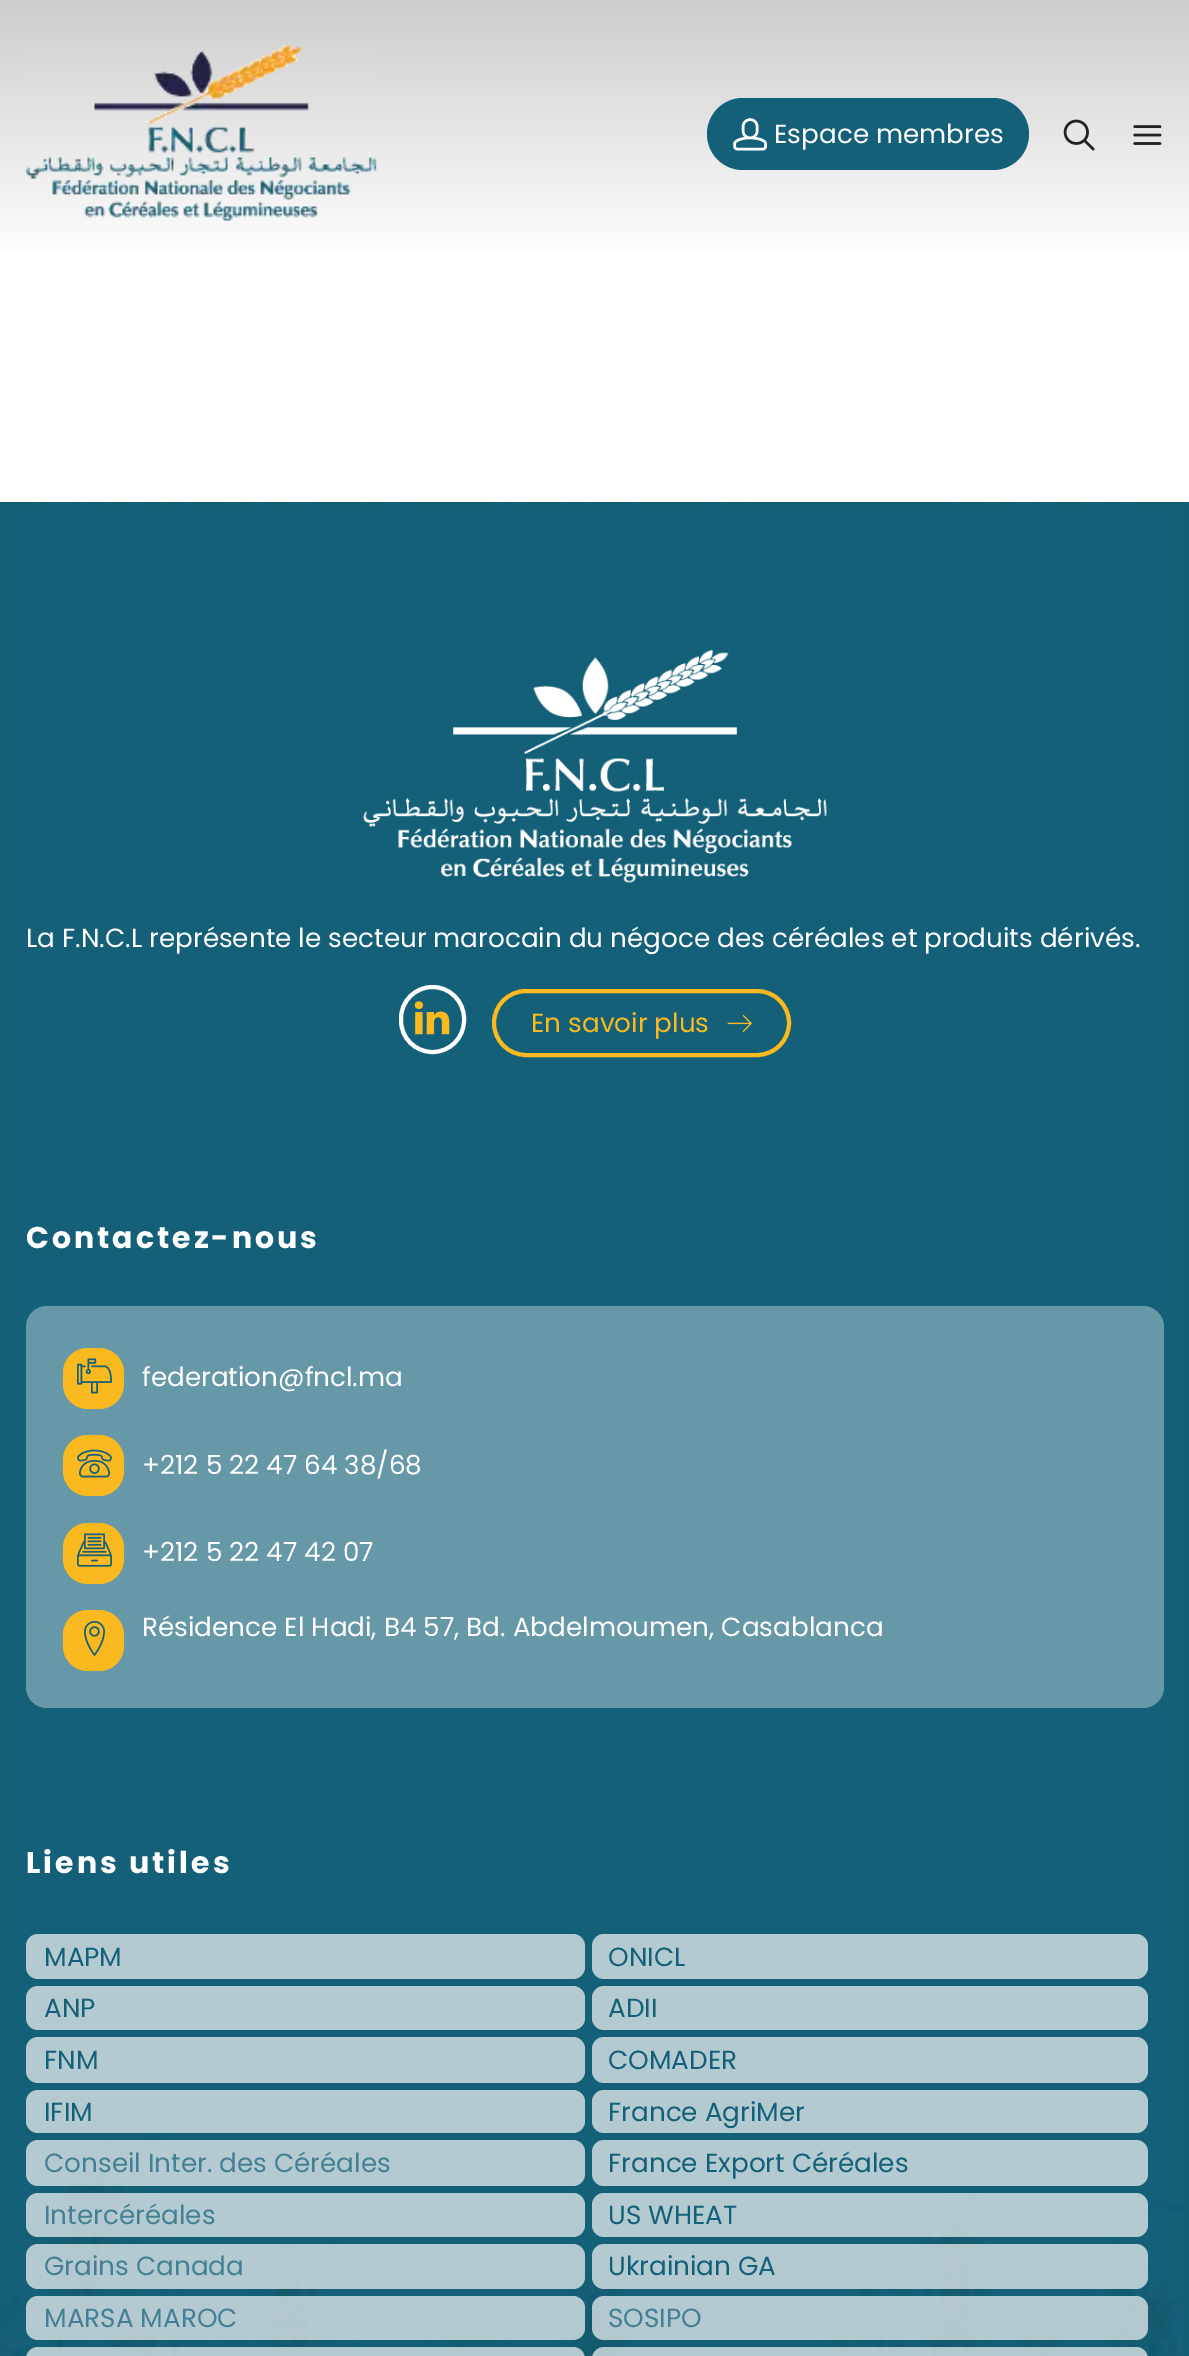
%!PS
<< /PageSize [1189 2356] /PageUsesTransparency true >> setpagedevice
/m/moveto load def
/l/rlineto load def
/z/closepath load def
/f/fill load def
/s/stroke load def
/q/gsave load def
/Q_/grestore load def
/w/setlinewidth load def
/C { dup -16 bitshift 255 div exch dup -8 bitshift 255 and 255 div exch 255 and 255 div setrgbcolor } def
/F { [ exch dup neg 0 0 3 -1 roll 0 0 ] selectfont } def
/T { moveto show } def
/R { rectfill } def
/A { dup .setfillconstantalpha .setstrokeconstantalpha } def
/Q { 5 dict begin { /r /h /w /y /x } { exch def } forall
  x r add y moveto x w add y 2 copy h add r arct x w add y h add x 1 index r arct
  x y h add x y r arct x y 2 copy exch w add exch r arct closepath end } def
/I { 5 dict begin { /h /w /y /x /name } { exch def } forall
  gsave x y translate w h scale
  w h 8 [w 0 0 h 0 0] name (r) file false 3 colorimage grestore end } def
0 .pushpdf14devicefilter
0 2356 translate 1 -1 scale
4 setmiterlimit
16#FFFFFF C
0 0 1189 2356 R
q 0 0 m 1189 0 l 0 253 l -1189 0 l z clip newpath
<< /ShadingType 2 /ColorSpace /DeviceRGB /Coords [595 266 595 0] /Extend [true true] /Function << /FunctionType 2 /Domain [0 1] /C0 [1 1 1] /C1 [.804 .804 .804] /N 1 >> >> shfill Q_
(1.rgb) 26 45 351 176 I
16#146078 C
707 98 322 72 36 Q f
(2.rgb) 733 118 34 33 I
/Poppins-Regular 26.25 F
16#FFFFFF C
(Espace membres) 774 143 T
(3.rgb) 1063 119 32 32 I
(4.rgb) 1133 125 29 20 I
16#135F76 C
0 502 1189 1854 R
(5.rgb) 2 502 1180 1854 I
(6.rgb) 363 649 464 234 I
16#FFFFFF C
(La F.N.C.L représente le secteur marocain du négoce des céréales et produits dérivés.) 26 947 T
4 w
401 987 63 65 31.5 Q s
(7.rgb) 414 1001 36 34 I
16#FBB920 C
494 991 295 64 32 Q s
(En savoir plus) 531 1032 T
(8.rgb) 727 1014 25 18 I
/Poppins-Bold 30 F
16#FFFFFF C
26 1248 m 3 0 (Contactez-nous) ashow
16#6698A7 C
26 1306 1138 402 21 Q f
16#FBB920 C
63 1348 61 61 25 Q f
(9.rgb) 77 1358 35 36 I
/Poppins-Regular 26.25 F
16#FFFFFF C
(federation@fncl.ma) 142 1386 T
16#FBB920 C
63 1435 61 61 25 Q f
(10.rgb) 77 1449 35 29 I
16#FFFFFF C
(+212 5 22 47 64 38/68) 142 1474 T
16#FBB920 C
63 1523 61 61 25 Q f
(11.rgb) 77 1533 35 34 I
16#FFFFFF C
(+212 5 22 47 42 07) 142 1561 T
16#FBB920 C
63 1610 61 61 25 Q f
(12.rgb) 84 1620 21 36 I
16#FFFFFF C
(Résidence El Hadi, B4 57, Bd. Abdelmoumen, Casablanca) 142 1636 T
/Poppins-Bold 30 F
26 1873 m 3 0 (Liens utiles) ashow
16#B3CAD1 C
26 1934 559 45 12 Q f
/Poppins-Regular 26.25 F
16#146078 C
(MAPM) 44 1966 T
16#B3CAD1 C
592 1934 556 45 12 Q f
16#146078 C
(ONICL) 608 1966 T
16#B3CAD1 C
26 1986 559 44 12 Q f
16#146078 C
(ANP) 44 2017 T
16#B3CAD1 C
592 1986 556 44 12 Q f
16#146078 C
(ADII) 608 2017 T
16#B3CAD1 C
26 2037 559 46 12 Q f
16#146078 C
(FNM) 44 2069 T
16#B3CAD1 C
592 2037 556 46 12 Q f
16#146078 C
(COMADER) 608 2069 T
0.7 A
16#F7F7F7 C
26 2090 559 43 12 Q f
1 A
16#146078 C
(IFIM) 44 2121 T
16#B3CAD1 C
592 2090 556 43 12 Q f
16#146078 C
(France AgriMer) 608 2121 T
0.7 A
16#F7F7F7 C
26 2140 559 46 12 Q f
1 A
16#448093 C
(Conseil Inter. des Céréales) 44 2172 T
0.7 A
16#F7F7F7 C
592 2140 556 46 12 Q f
1 A
16#146078 C
(France Export Céréales) 608 2172 T
0.7 A
16#F7F7F7 C
26 2193 559 44 12 Q f
1 A
16#448093 C
(Intercéréales) 44 2224 T
0.7 A
16#F7F7F7 C
592 2193 556 44 12 Q f
1 A
16#146078 C
(US WHEAT) 608 2224 T
0.7 A
16#F7F7F7 C
26 2244 559 45 12 Q f
1 A
16#448093 C
(Grains Canada) 44 2275 T
0.7 A
16#F7F7F7 C
592 2244 556 45 12 Q f
1 A
16#146078 C
(Ukrainian GA) 608 2275 T
0.7 A
16#F7F7F7 C
26 2296 559 44 12 Q f
1 A
16#448093 C
(MARSA MAROC) 44 2327 T
0.7 A
16#F7F7F7 C
592 2296 556 44 12 Q f
1 A
16#448093 C
(SOSIPO) 608 2327 T
0.7 A
16#F7F7F7 C
26 2347 559 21 12 Q f
592 2347 556 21 12 Q f
.poppdf14devicefilter showpage
